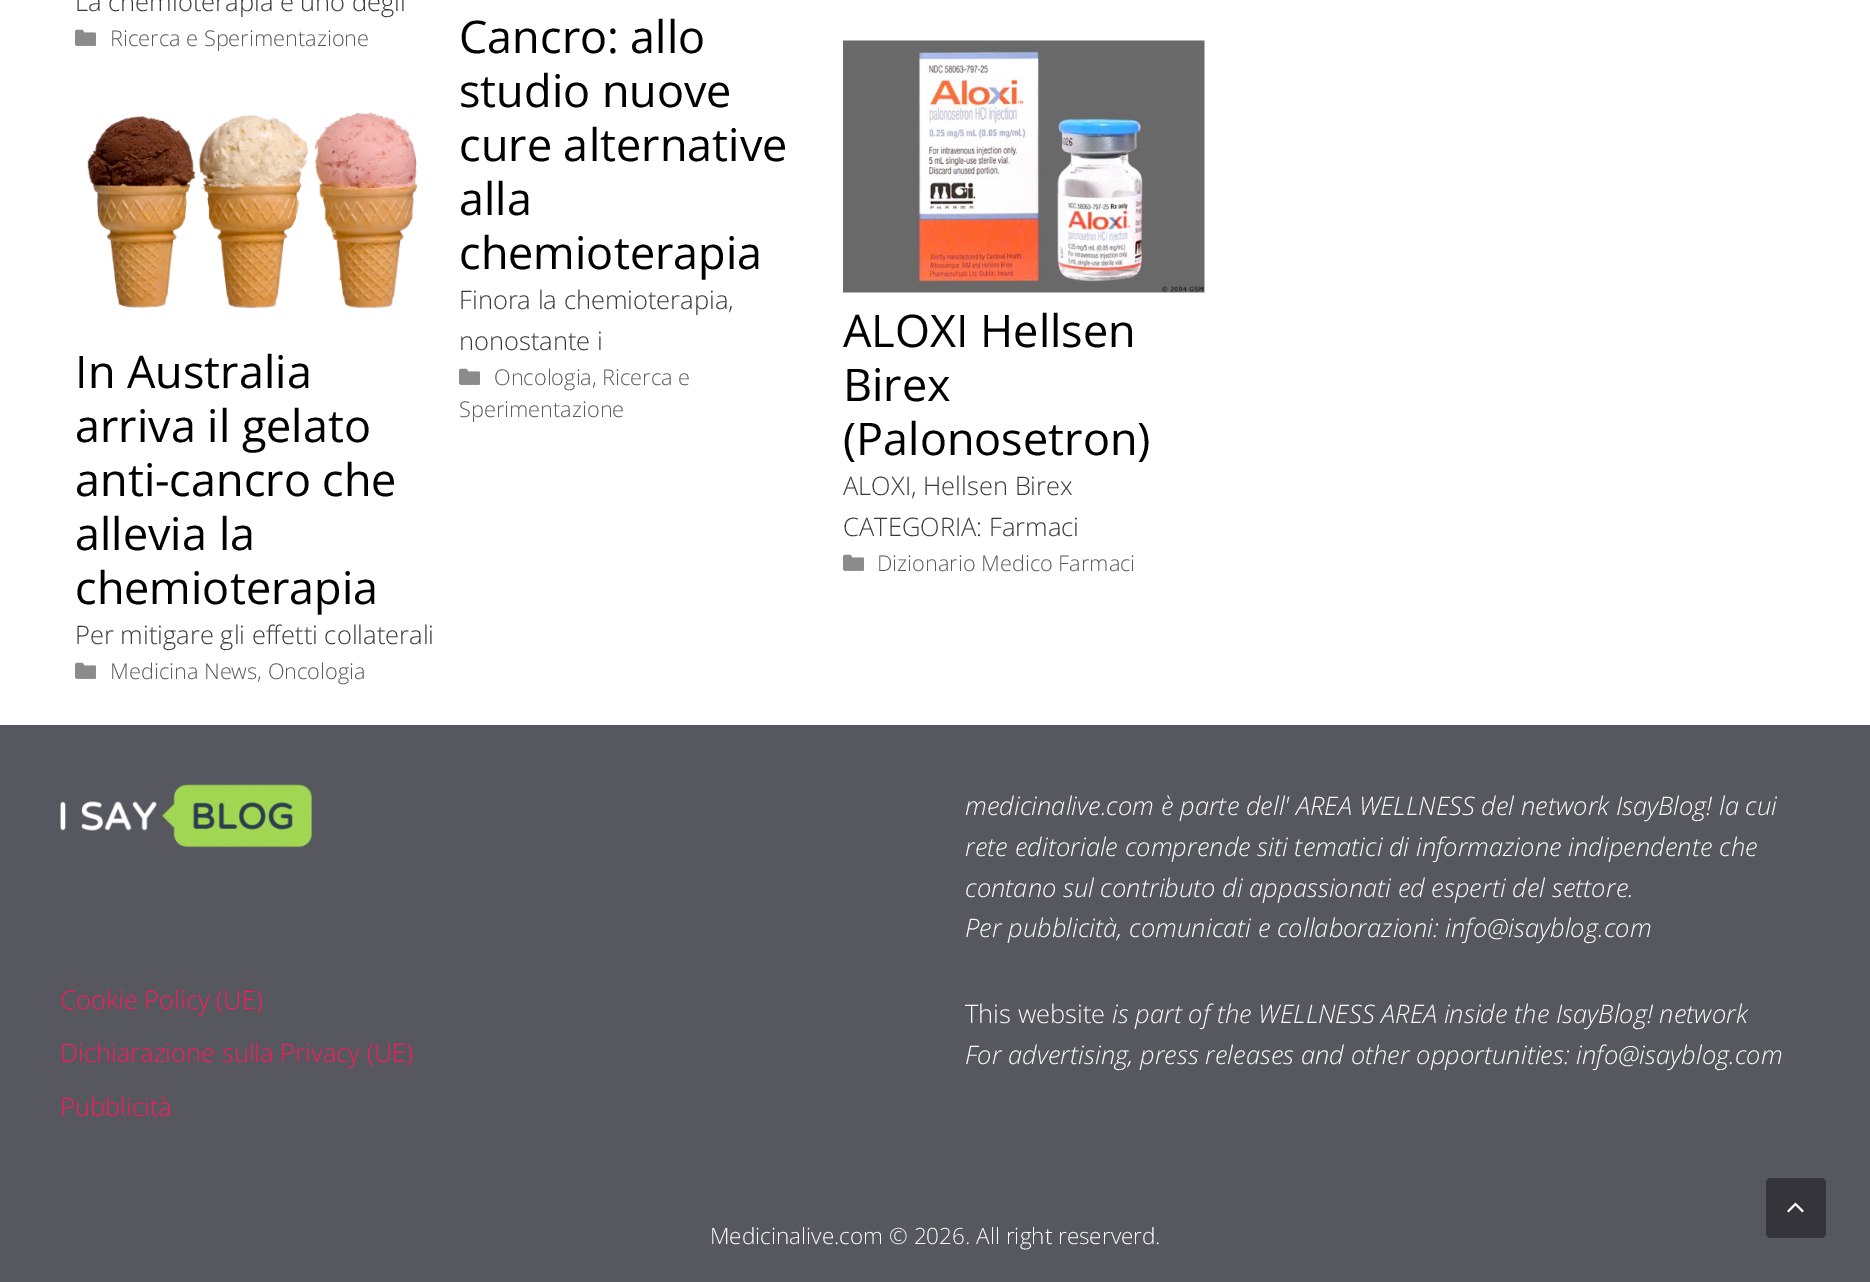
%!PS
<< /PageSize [1870 1282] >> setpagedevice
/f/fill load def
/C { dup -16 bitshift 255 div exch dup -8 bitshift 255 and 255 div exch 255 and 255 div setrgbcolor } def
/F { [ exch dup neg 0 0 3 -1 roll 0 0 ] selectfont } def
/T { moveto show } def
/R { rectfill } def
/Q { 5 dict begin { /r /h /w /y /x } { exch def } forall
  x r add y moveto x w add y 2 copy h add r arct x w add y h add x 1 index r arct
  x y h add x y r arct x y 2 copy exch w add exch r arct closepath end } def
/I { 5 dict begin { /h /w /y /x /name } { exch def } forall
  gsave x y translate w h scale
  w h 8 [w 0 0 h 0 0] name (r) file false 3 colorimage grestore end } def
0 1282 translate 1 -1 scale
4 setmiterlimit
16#FFFFFF C
0 0 1870 1282 R
/OpenSans-Light 25.5 F
16#3A3A3A C
(La chemioterapia è uno degli) 75 11 T
(1.rgb) 75 29 21 17 I
/OpenSans-Light 21.75 F
16#595959 C
(Ricerca e Sperimentazione) 110 46 T
/OpenSans-Regular 45 F
16#000000 C
(Cancro: allo) 459 53 T
(studio nuove) 459 107 T
(cure alternative) 459 161 T
(alla) 459 215 T
(chemioterapia) 459 269 T
/OpenSans-Light 25.5 F
16#3A3A3A C
(Finora la chemioterapia,) 459 309 T
(nonostante i) 459 350 T
(1.rgb) 459 368 21 17 I
/OpenSans-Light 21.75 F
16#595959 C
(Oncologia, Ricerca e) 494 385 T
(Sperimentazione) 459 417 T
(2.rgb) 843 40 362 253 I
/OpenSans-Regular 45 F
16#000000 C
(ALOXI Hellsen) 843 347 T
(Birex) 843 401 T
(\(Palonosetron\)) 843 455 T
/OpenSans-Light 25.5 F
16#3A3A3A C
(ALOXI, Hellsen Birex) 843 495 T
(CATEGORIA: Farmaci) 843 536 T
(1.rgb) 843 554 21 17 I
/OpenSans-Light 21.75 F
16#595959 C
(Dizionario Medico Farmaci) 877 571 T
(3.rgb) 87 112 331 197 I
/OpenSans-Regular 45 F
16#000000 C
(In Australia) 75 388 T
(arriva il gelato) 75 442 T
(anti-cancro che) 75 496 T
(allevia la) 75 550 T
(chemioterapia) 75 604 T
/OpenSans-Light 25.5 F
16#3A3A3A C
(Per mitigare gli effetti collaterali) 75 644 T
(1.rgb) 75 662 21 17 I
/OpenSans-Light 21.75 F
16#595959 C
(Medicina News, Oncologia) 110 679 T
16#575760 C
0 725 1870 557 R
(4.rgb) 60 784 252 64 I
/OpenSans-Light 25.5 F
16#FF1956 C
(Cookie Policy \(UE\)) 60 1009 T
(Dichiarazione sulla Privacy \(UE\)) 60 1062 T
(Pubblicità) 60 1116 T
/OpenSans-LightItalic 25.5 F
16#FFFFFF C
(medicinalive.com è parte dell' AREA WELLNESS del network IsayBlog! la cui) 965 815 T
(rete editoriale comprende siti tematici di informazione indipendente che) 965 856 T
(contano sul contributo di appassionati ed esperti del settore.) 965 897 T
(Per pubblicità, comunicati e collaborazioni: info@isayblog.com) 965 937 T
/OpenSans-Light 25.5 F
(This website) 965 1023 T
/OpenSans-LightItalic 25.5 F
(is part of the WELLNESS AREA inside the IsayBlog! network) 1112 1023 T
(For advertising, press releases and other opportunities: info@isayblog.com) 965 1064 T
/OpenSans-Light 22.5 F
(Medicinalive.com © 2026. All right reserverd.) 710 1244 T
16#34343A C
1766 1178 60 60 5 Q f
(5.rgb) 1787 1202 17 11 I
showpage
